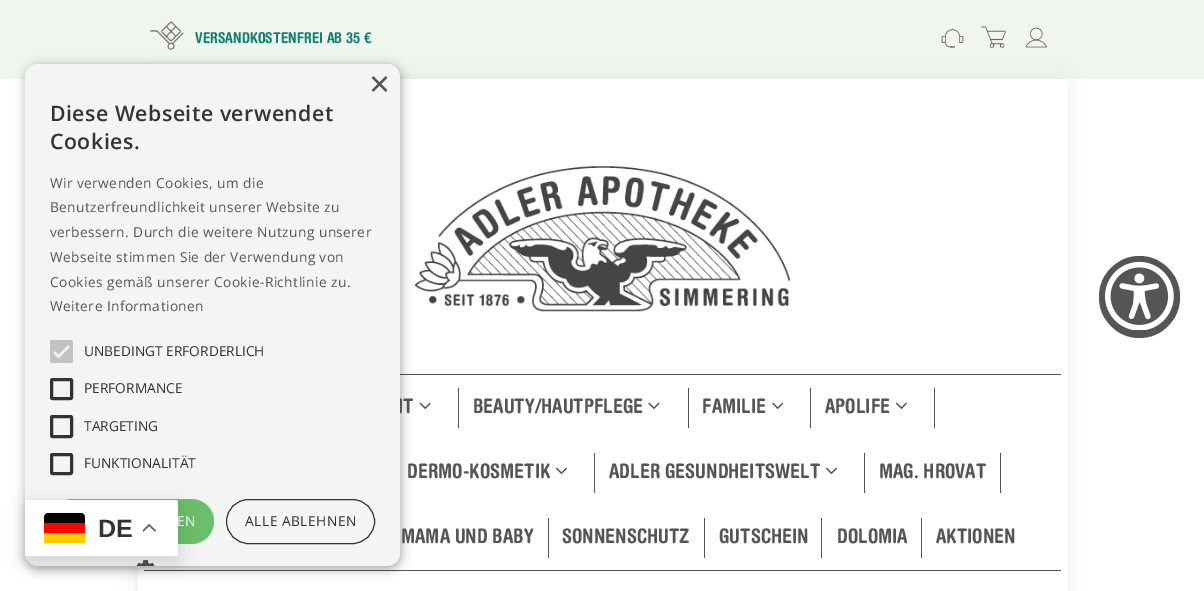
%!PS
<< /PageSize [1204 591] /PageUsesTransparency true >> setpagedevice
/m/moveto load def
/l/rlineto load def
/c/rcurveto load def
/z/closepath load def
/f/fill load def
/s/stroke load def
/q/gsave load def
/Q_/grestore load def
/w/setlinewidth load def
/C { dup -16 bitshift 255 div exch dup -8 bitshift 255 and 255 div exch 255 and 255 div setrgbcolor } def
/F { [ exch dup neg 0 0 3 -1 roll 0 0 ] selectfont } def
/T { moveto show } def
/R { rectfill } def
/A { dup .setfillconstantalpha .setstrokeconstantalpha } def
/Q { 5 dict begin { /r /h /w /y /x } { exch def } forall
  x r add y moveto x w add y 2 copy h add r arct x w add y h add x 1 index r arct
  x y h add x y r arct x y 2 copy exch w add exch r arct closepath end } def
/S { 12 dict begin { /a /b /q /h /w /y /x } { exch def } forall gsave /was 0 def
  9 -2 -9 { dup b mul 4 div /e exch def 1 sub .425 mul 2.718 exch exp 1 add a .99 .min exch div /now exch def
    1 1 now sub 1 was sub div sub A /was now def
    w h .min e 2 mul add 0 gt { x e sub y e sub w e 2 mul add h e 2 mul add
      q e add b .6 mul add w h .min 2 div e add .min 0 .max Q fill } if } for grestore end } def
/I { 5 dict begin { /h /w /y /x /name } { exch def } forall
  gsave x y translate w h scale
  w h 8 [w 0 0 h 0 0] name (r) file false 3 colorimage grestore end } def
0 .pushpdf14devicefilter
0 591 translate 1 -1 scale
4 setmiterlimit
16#FFFFFF C
0 0 1204 591 R
16#F0F5EE C
0 0 1204 79 R
16#DBDBDB C
144 85 917 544 0 12.5 1 S
(1.rgb) 150 21 34 29 I
/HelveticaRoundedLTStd-Bold 15 F
16#11826E C
(VERSANDKOSTENFREI AB 35 €) 195 43 T
(2.rgb) 941 29 23 19 I
(3.rgb) 981 26 25 22 I
(4.rgb) 1025 27 22 21 I
16#FFFFFF C
138 79 930 512 R
(8.rgb) 415 166 375 146 I
16#555555 C
400 374 661 1 R
144 570 917 1 R
16#000000 C
26 66 375 503 13 5 .35 S
/HelveticaRoundedLTStd-Bold 20 F
16#555555 C
(IT) 398 413 T
16#F4F4F4 C
25 64 375 502 13 Q f
/LiberationSans-Regular 36 F
16#555555 C
(×) 369 96 T
/OpenSans-SemiBold 21.25 F
16#333333 C
50 121 m .5 0 (Diese Webseite verwendet) ashow
50 149 m .5 0 (Cookies.) ashow
/OpenSans-Regular 13.75 F
16#555555 C
50 188 m .4 0 (Wir verwenden Cookies, um die) ashow
50 212 m .4 0 (Benutzerfreundlichkeit unserer Website zu) ashow
50 237 m .4 0 (verbessern. Durch die weitere Nutzung unserer) ashow
50 262 m .4 0 (Webseite stimmen Sie der Verwendung von) ashow
50 287 m .4 0 (Cookies gemäß unserer Cookie-Richtlinie zu.) ashow
50 311 m .4 0 (Weitere Informationen) ashow
16#C2C2C2 C
50 340 23 23 2.5 Q f
16#F4F4F4 C
2.3 w
54 352 m 4.5 4.5 l 10.5 -10.5 l s
16#333333 C
(UNBEDINGT ERFORDERLICH) 84 356 T
3 w
51.5 379.5 20 19 1 Q s
(PERFORMANCE) 84 393 T
51.5 416.5 20 20 1 Q s
(TARGETING) 84 431 T
51.5 454.5 20 19 1 Q s
(FUNKTIONALITÄT) 84 468 T
16#6BBE6B C
50 499 164 45 22.5 Q f
16#FFFFFF C
177 526 m .5 0 (EN) ashow
16#333333 C
1 w
226.5 499.5 148 44 22 Q s
245 526 m .5 0 (ALLE ABLEHNEN) ashow
(5.rgb) 136 560 19 6 I
16#555555 C
1099 256 81 82 40.5 Q f
(6.rgb) 1105 261 69 69 I
16#000000 C
25 506 153 57 2.5 9.5 .15 S
16#FFFFFF C
25 500 153 56 2.5 Q f
q
44 513 41 31 4 Q clip newpath
16#FFCC00 C
44 533 41 10 R
Q_
16#000000 C
48 513 m 33 0 l 2 0 4 2 4 4 c 0 6 l -41 0 l 0 -6 l 0 -2 2 -4 4 -4 c z f
16#FF0000 C
44 523 41 10 R
/LiberationSans-Bold 25 F
16#333333 C
(DE) 98 537 T
(7.rgb) 143 523 13 9 I
16#555555 C
458 388 1 40 R
(9.rgb) 419 402 12 8 I
688 388 1 40 R
/HelveticaRoundedLTStd-Bold 20 F
(BEAUTY/HAUTPFLEGE) 473 413 T
(10.rgb) 648 402 12 8 I
810 388 1 40 R
(FAMILIE) 702 413 T
(11.rgb) 772 402 12 8 I
934 388 1 40 R
(APOLIFE) 825 413 T
(12.rgb) 895 402 12 8 I
594 453 1 40 R
(DERMO-KOSMETIK) 407 478 T
(12.rgb) 555 467 12 8 I
864 453 1 40 R
(ADLER GESUNDHEITSWELT) 609 478 T
(12.rgb) 825 467 12 8 I
1000 453 1 40 R
(MAG. HROVAT) 879 478 T
548 518 1 40 R
(MAMA UND BABY) 401 543 T
704 518 1 40 R
(SONNENSCHUTZ) 562 543 T
821 518 1 40 R
(GUTSCHEIN) 719 543 T
921 518 1 40 R
(DOLOMIA) 837 543 T
(AKTIONEN) 936 543 T
.poppdf14devicefilter showpage
